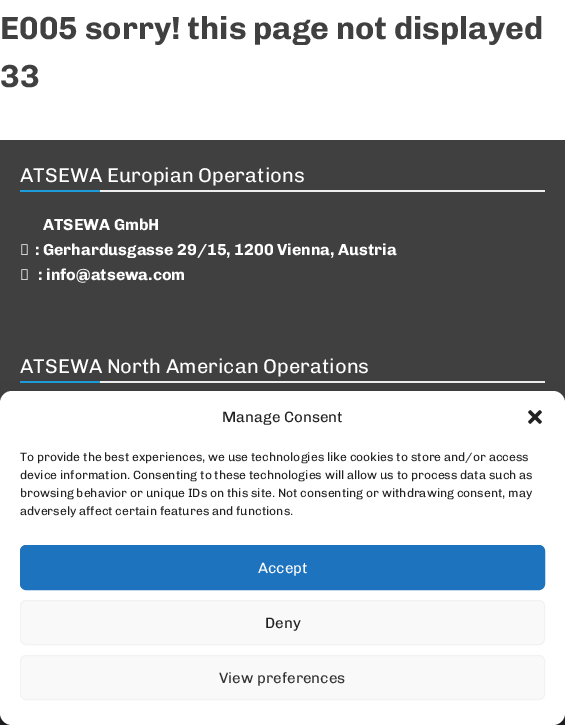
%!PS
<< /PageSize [565 725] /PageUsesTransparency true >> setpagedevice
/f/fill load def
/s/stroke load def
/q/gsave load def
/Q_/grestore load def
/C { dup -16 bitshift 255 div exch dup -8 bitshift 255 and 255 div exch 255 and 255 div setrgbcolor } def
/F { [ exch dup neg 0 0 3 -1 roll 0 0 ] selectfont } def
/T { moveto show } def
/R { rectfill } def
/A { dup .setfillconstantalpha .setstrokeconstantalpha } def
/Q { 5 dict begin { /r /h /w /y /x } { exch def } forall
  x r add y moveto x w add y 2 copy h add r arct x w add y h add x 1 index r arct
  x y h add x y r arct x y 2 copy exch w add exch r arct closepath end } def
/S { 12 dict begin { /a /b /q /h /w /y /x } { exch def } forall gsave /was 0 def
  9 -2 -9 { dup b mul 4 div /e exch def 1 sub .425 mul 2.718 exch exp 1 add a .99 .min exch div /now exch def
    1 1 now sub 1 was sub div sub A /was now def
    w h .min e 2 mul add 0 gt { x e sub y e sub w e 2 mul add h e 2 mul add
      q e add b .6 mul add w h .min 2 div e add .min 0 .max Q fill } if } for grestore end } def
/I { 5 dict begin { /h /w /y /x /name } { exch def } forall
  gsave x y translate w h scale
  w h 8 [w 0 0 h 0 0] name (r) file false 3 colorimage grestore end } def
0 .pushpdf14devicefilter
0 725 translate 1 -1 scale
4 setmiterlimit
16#FFFFFF C
0 0 565 725 R
/Chivo-Bold 32 F
16#404040 C
(E005 sorry! this page not displayed) 0 39 T
(33) 0 87 T
0 140 565 263 R
16#EEEEEE C
100 190 445 2 R
/Chivo-Regular 20 F
16#FFFFFF C
(ATSEWA Europian Operations) 20 182 T
16#1C9CDA C
20 190 80 2 R
/Chivo-Bold 16 F
16#FFFFFF C
(ATSEWA GmbH) 43 230 T
(1.rgb) 21 244 7 11 I
(: Gerhardusgasse 29/15, 1200 Vienna, Austria) 35 255 T
(1.rgb) 21 269 7 11 I
(: info@atsewa.com) 38 280 T
16#EEEEEE C
100 381 445 2 R
/Chivo-Regular 20 F
16#FFFFFF C
(ATSEWA North American Operations) 20 373 T
16#1C9CDA C
20 381 80 2 R
16#232228 C
0 713 565 12 R
16#000000 C
0 397 565 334 12 3 .23 S
0 401 565 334 12 10 .19 S
16#FFFFFF C
0 391 565 334 12 Q f
/Chivo-Regular 15 F
16#222222 C
(Manage Consent) 222 422 T
(2.rgb) 528 410 14 14 I
/Chivo-Regular 12 F
(To provide the best experiences, we use technologies like cookies to store and/or access) 20 461 T
(device information. Consenting to these technologies will allow us to process data such as) 20 479 T
(browsing behavior or unique IDs on this site. Not consenting or withdrawing consent, may) 20 497 T
(adversely affect certain features and functions.) 20 515 T
16#1E73BE C
20.5 545.5 524 44 5.5 Q q f Q_
s
/Chivo-Regular 15 F
16#FFFFFF C
(Accept) 258 573 T
16#F9F9F9 C
20.5 600.5 524 44 5.5 Q q f Q_
16#F2F2F2 C
s
16#222222 C
(Deny) 265 628 T
16#F9F9F9 C
20.5 655.5 524 44 5.5 Q q f Q_
16#F2F2F2 C
s
16#333333 C
(View preferences) 219 683 T
.poppdf14devicefilter showpage
